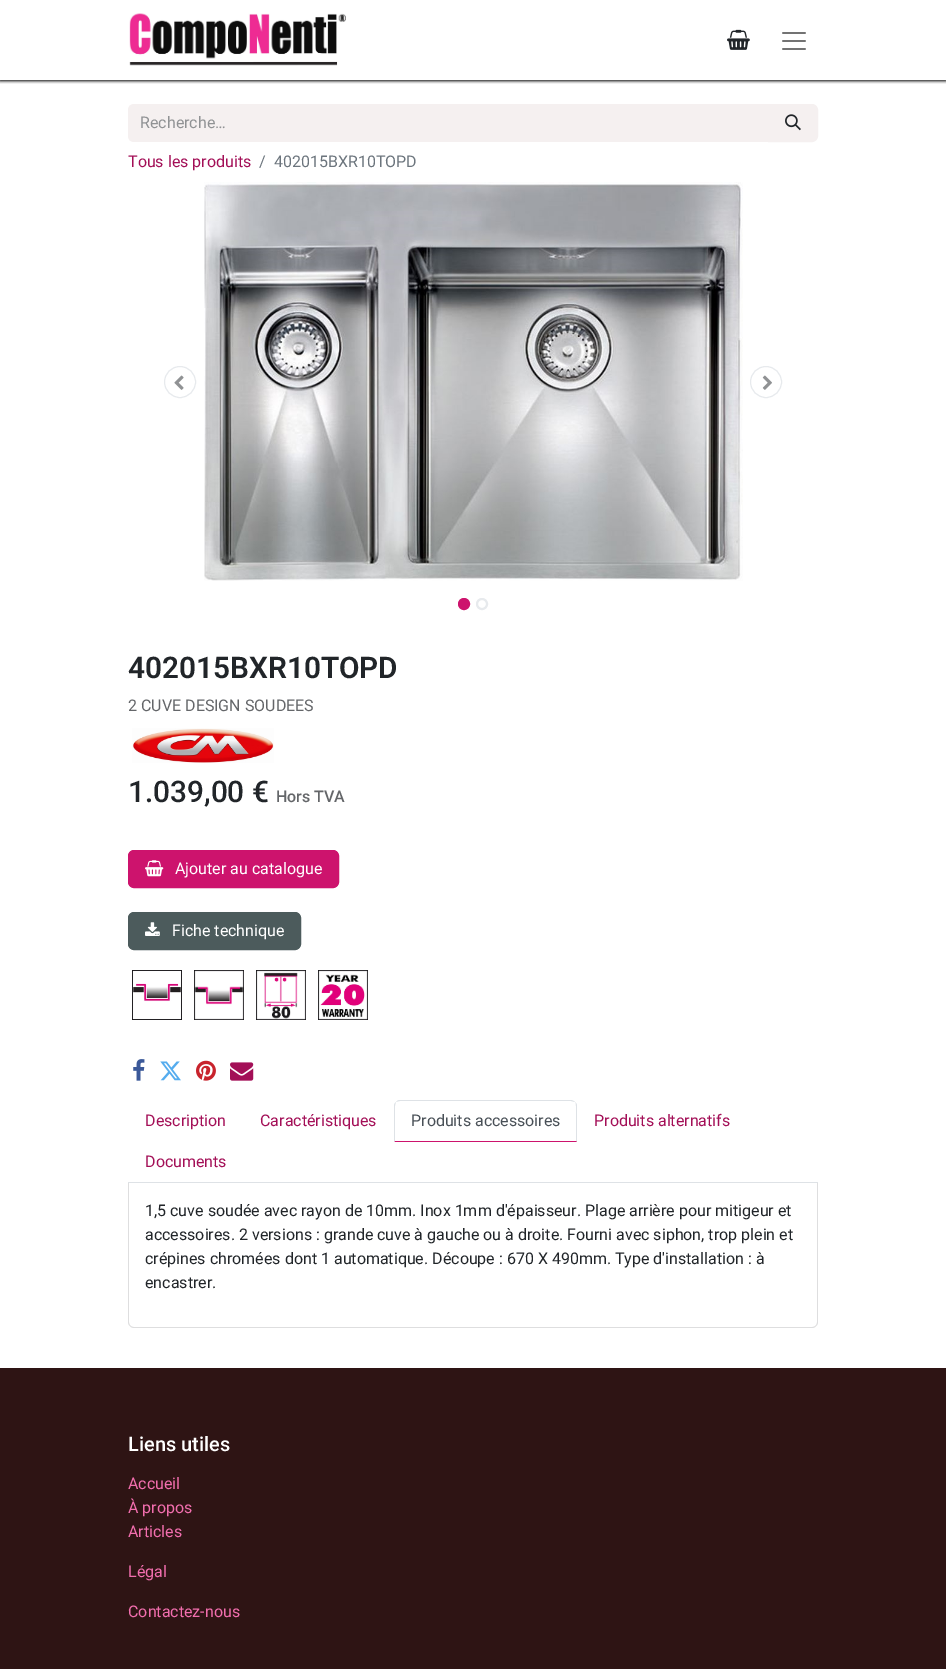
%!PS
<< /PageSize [946 1669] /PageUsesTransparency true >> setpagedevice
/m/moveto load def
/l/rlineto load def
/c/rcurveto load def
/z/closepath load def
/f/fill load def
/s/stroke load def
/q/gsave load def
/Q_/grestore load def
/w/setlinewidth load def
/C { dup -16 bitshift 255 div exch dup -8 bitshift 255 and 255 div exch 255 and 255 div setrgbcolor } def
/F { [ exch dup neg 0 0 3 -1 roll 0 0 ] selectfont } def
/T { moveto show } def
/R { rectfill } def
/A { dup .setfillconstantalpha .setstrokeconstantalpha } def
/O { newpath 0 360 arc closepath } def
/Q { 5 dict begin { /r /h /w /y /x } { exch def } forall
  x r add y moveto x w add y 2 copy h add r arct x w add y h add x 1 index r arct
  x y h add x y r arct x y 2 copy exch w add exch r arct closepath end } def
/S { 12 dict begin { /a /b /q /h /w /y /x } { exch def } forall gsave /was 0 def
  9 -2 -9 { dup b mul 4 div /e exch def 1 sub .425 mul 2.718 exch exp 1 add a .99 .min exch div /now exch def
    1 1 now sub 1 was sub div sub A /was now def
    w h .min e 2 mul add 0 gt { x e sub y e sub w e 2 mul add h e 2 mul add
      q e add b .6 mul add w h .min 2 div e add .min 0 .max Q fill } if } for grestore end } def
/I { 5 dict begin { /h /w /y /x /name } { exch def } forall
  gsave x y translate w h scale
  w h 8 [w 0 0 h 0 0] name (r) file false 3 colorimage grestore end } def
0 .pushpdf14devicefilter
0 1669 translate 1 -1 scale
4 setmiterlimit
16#FFFFFF C
0 0 946 1669 R
q
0 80 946 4 rectclip
16#000000 C
0 1 946 80 0 1.5 1 S
Q_
(1.rgb) 129 13 217 53 I
(2.rgb) 727 29 23 21 I
(3.rgb) 782 32 24 18 I
16#F5F0F0 C
134 104 m 635 0 l 0 38 l -635 0 l -3.5 0 -6 -2.5 -6 -6 c 0 -26 l 0 -3.5 2.5 -6 6 -6 c z f
/Roboto-Regular 16 F
16#909294 C
(Recherche…) 140 128 T
16#F5F0F0 C
768.5 104.5 m 43.5 0 l 3 0 5.5 2.5 5.5 5.5 c 0 26 l 0 3 -2.5 5.5 -5.5 5.5 c -43.5 0 l z q f Q_
s
(4.rgb) 785 114 16 17 I
16#A30F57 C
(Tous les produits) 128 167 T
16#6C757D C
(/) 259 167 T
(402015BXR10TOPD) 274 167 T
16#E7EAED C
180 382 15.5 O s
(5.rgb) 174 375 10 15 I
(6.rgb) 204 182 539 399 I
766 382 15.5 O s
(7.rgb) 762 375 10 15 I
16#CD136D C
464 604 5 O q f Q_
2 w
s
16#E7EAED C
482 604 5 O s
/Roboto-SemiBold 29.75 F
16#212529 C
(402015BXR10TOPD) 128 678 T
/Roboto-Regular 16 F
16#646669 C
(2 CUVE DESIGN SOUDEES) 128 711 T
(8.rgb) 132 728 142 35 I
/Roboto-Medium 29.75 F
16#212529 C
(1.039,00 €) 128 802 T
/Roboto-Medium 16 F
16#646669 C
(Hors TVA) 276 802 T
16#CD136D C
128.5 850.5 210 37 5.5 Q q f Q_
1 w
s
(9.rgb) 145 860 19 17 I
/Roboto-Regular 16 F
16#FFFFFF C
(Ajouter au catalogue) 175 874 T
16#4C5B5C C
128.5 912.5 172 37 5.5 Q q f Q_
s
(10.rgb) 145 922 15 14 I
16#FFFFFF C
(Fiche technique) 172 936 T
(11.rgb) 132 970 50 50 I
(12.rgb) 194 970 50 50 I
(13.rgb) 256 970 50 50 I
(14.rgb) 318 970 50 50 I
(15.rgb) 133 1059 12 22 I
(16.rgb) 160 1061 21 20 I
(17.rgb) 196 1060 20 21 I
(18.rgb) 230 1062 24 19 I
16#DEE2E6 C
128 1182 690 1 R
16#A30F57 C
(Description) 145 1126 T
(Caractéristiques) 260 1126 T
16#DEE2E6 C
400 1100 m -2 0 -3 1 -4 2 c 1 0 2 -1 4 -1 c 171 0 l 1 0 3 1 4 1 c -1 -1 -3 -2 -4 -2 c z f
577 1142 m 0 -36 l 0 -2 -1 -3 -2 -4 c 1 1 1 2 1 4 c 0 35 l z f
16#CD136D C
577 1142 m -1 -1 l -181 0 l -1 1 l z f
16#DEE2E6 C
394 1142 m 1 -1 l 0 -35 l 0 -2 1 -3 1 -4 c -1 1 -2 2 -2 4 c z f
16#495057 C
(Produits accessoires) 411 1126 T
16#A30F57 C
(Produits alternatifs) 594 1126 T
(Documents) 145 1167 T
16#DEDEDF C
128 1183 m 690 0 l 0 139 l 0 3 -3 6 -6 6 c -678 0 l -3 0 -6 -3 -6 -6 c z 129 1183 m 688 0 l 0 139 l 0 3 -2 5 -5 5 c -678 0 l -3 0 -5 -2 -5 -5 c z eofill
16#212529 C
(1,5 cuve soudée avec rayon de 10mm. Inox 1mm d'épaisseur. Plage arrière pour mitigeur et) 145 1216 T
(accessoires. 2 versions : grande cuve à gauche ou à droite. Fourni avec siphon, trop plein et) 145 1240 T
(crépines chromées dont 1 automatique. Découpe : 670 X 490mm. Type d'installation : à) 145 1264 T
(encastrer.) 145 1288 T
16#2E1414 C
0 1368 946 301 R
/Roboto-Medium 20 F
16#FFFFFF C
(Liens utiles) 128 1451 T
/Roboto-Regular 16 F
16#F26EAE C
(Accueil) 128 1489 T
(À propos) 128 1513 T
(Articles) 128 1537 T
(Légal) 128 1577 T
(Contactez-nous) 128 1617 T
.poppdf14devicefilter showpage
